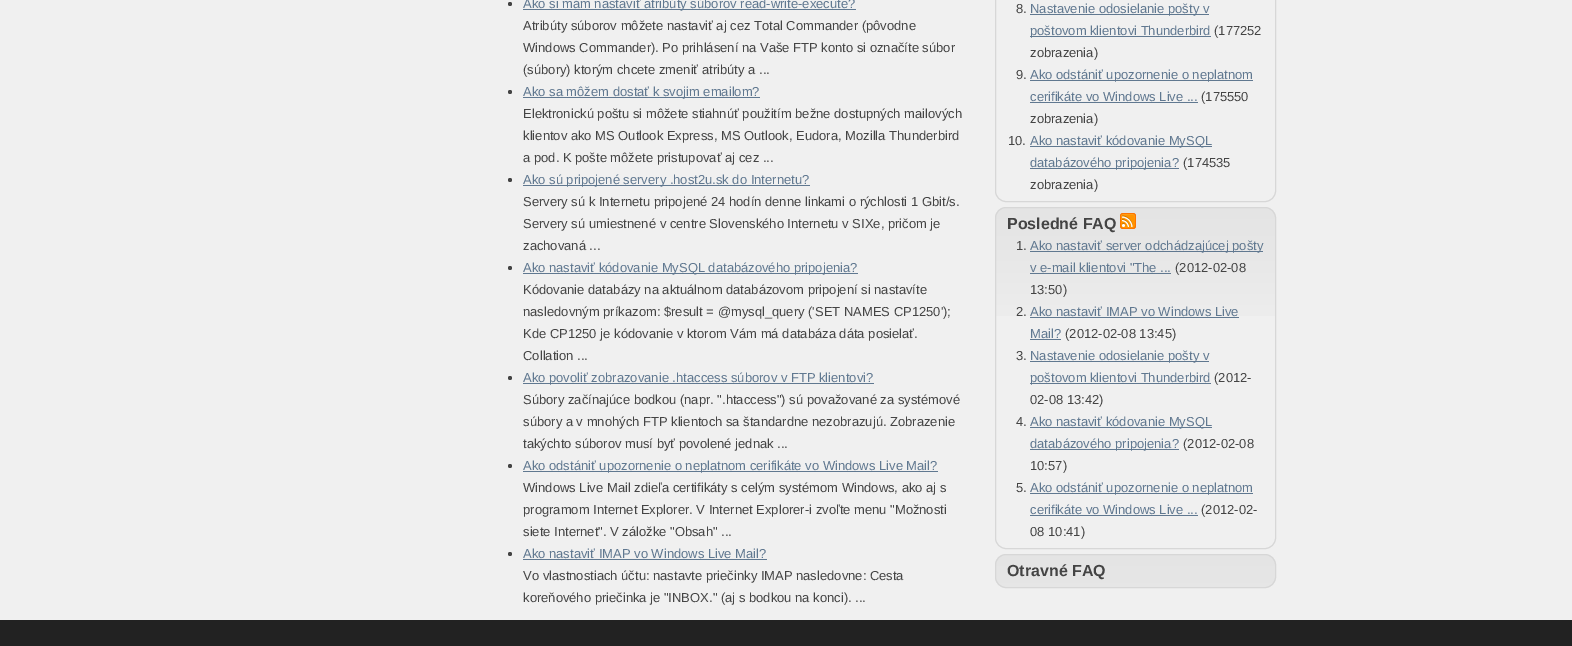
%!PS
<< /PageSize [1572 646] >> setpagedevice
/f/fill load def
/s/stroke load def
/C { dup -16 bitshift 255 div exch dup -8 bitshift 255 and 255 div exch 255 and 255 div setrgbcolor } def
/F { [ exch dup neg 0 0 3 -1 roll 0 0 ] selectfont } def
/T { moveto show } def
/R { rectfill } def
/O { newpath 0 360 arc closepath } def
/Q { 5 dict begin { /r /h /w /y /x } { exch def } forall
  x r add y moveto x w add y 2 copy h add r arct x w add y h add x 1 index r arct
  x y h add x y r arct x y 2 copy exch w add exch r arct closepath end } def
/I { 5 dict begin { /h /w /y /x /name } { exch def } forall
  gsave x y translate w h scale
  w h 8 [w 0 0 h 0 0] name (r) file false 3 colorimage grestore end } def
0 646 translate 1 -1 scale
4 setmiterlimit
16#F0F0F0 C
0 0 1572 646 R
16#444444 C
510 4 2 O f
16#607890 C
523 9 333 1 R
/LiberationSans-Regular 13 F
(Ako si mám nastaviť atribúty súborov read-write-execute?) 523 8 T
16#444444 C
(Atribúty súborov môžete nastaviť aj cez Total Commander \(pôvodne) 523 30 T
(Windows Commander\). Po prihlásení na Vaše FTP konto si označíte súbor) 523 52 T
(\(súbory\) ktorým chcete zmeniť atribúty a ...) 523 74 T
510 92 2 O f
16#607890 C
523 97 237 1 R
(Ako sa môžem dostať k svojim emailom?) 523 96 T
16#444444 C
(Elektronickú poštu si môžete stiahnúť použitím bežne dostupných mailových) 523 118 T
(klientov ako MS Outlook Express, MS Outlook, Eudora, Mozilla Thunderbird) 523 140 T
(a pod. K pošte môžete pristupovať aj cez ...) 523 162 T
510 180 2 O f
16#607890 C
523 185 287 1 R
(Ako sú pripojené servery .host2u.sk do Internetu?) 523 184 T
16#444444 C
(Servery sú k Internetu pripojené 24 hodín denne linkami o rýchlosti 1 Gbit/s.) 523 206 T
(Servery sú umiestnené v centre Slovenského Internetu v SIXe, pričom je) 523 228 T
(zachovaná ...) 523 250 T
510 268 2 O f
16#607890 C
523 273 335 1 R
(Ako nastaviť kódovanie MySQL databázového pripojenia?) 523 272 T
16#444444 C
(Kódovanie databázy na aktuálnom databázovom pripojení si nastavíte) 523 294 T
(nasledovným príkazom: $result = @mysql_query \('SET NAMES CP1250'\);) 523 316 T
(Kde CP1250 je kódovanie v ktorom Vám má databáza dáta posielať.) 523 338 T
(Collation ...) 523 360 T
510 378 2 O f
16#607890 C
523 383 351 1 R
(Ako povoliť zobrazovanie .htaccess súborov v FTP klientovi?) 523 382 T
16#444444 C
(Súbory začínajúce bodkou \(napr. ".htaccess"\) sú považované za systémové) 523 404 T
(súbory a v mnohých FTP klientoch sa štandardne nezobrazujú. Zobrazenie) 523 426 T
(takýchto súborov musí byť povolené jednak ...) 523 448 T
510 466 2 O f
16#607890 C
523 471 415 1 R
(Ako odstániť upozornenie o neplatnom cerifikáte vo Windows Live Mail?) 523 470 T
16#444444 C
(Windows Live Mail zdieľa certifikáty s celým systémom Windows, ako aj s) 523 492 T
(programom Internet Explorer. V Internet Explorer-i zvoľte menu "Možnosti) 523 514 T
(siete Internet". V záložke "Obsah" ...) 523 536 T
510 554 2 O f
16#607890 C
(Ako nastaviť IMAP vo Windows Live Mail?) 523 558 T
523 559 244 1 R
16#444444 C
(Vo vlastnostiach účtu: nastavte priečinky IMAP nasledovne: Cesta) 523 580 T
(koreňového priečinka je "INBOX." \(aj s bodkou na konci\). ...) 523 602 T
16#D7D7D7 C
995.5 -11.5 280 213 10.5 Q s
16#444444 C
(8.) 1016 13 T
16#607890 C
1030 14 179 1 R
(Nastavenie odosielanie pošty v) 1030 13 T
1030 36 181 1 R
(poštovom klientovi Thunderbird) 1030 35 T
16#444444 C
(\(177252) 1214 35 T
(zobrazenia\)) 1030 57 T
(9.) 1016 79 T
16#607890 C
1030 80 223 1 R
(Ako odstániť upozornenie o neplatnom) 1030 79 T
(cerifikáte vo Windows Live ...) 1030 101 T
1030 102 168 1 R
16#444444 C
(\(175550) 1201 101 T
(zobrazenia\)) 1030 123 T
(10.) 1008 145 T
16#607890 C
1030 146 182 1 R
(Ako nastaviť kódovanie MySQL) 1030 145 T
1030 168 149 1 R
(databázového pripojenia?) 1030 167 T
16#444444 C
(\(174535) 1183 167 T
(zobrazenia\)) 1030 189 T
(1.rgb) 995 208 281 108 I
16#D7D7D7 C
995.5 207.5 280 341 10.5 Q s
/LiberationSans-Bold 16 F
16#444444 C
(Posledné FAQ) 1007 229 T
(2.rgb) 1120 213 16 16 I
/LiberationSans-Regular 13 F
(1.) 1016 250 T
16#607890 C
1030 251 233 1 R
(Ako nastaviť server odchádzajúcej pošty) 1030 250 T
(v e-mail klientovi "The ...) 1030 272 T
1030 273 141 1 R
16#444444 C
(\(2012-02-08) 1175 272 T
(13:50\)) 1030 294 T
(2.) 1016 316 T
16#607890 C
(Ako nastaviť IMAP vo Windows Live) 1030 316 T
1030 317 209 1 R
(Mail?) 1030 338 T
1030 339 31 1 R
16#444444 C
(\(2012-02-08 13:45\)) 1065 338 T
(3.) 1016 360 T
16#607890 C
1030 361 179 1 R
(Nastavenie odosielanie pošty v) 1030 360 T
1030 383 181 1 R
(poštovom klientovi Thunderbird) 1030 382 T
16#444444 C
(\(2012-) 1214 382 T
(02-08 13:42\)) 1030 404 T
(4.) 1016 426 T
16#607890 C
1030 427 182 1 R
(Ako nastaviť kódovanie MySQL) 1030 426 T
1030 449 149 1 R
(databázového pripojenia?) 1030 448 T
16#444444 C
(\(2012-02-08) 1183 448 T
(10:57\)) 1030 470 T
(5.) 1016 492 T
16#607890 C
1030 493 223 1 R
(Ako odstániť upozornenie o neplatnom) 1030 492 T
(cerifikáte vo Windows Live ...) 1030 514 T
1030 515 168 1 R
16#444444 C
(\(2012-02-) 1201 514 T
(08 10:41\)) 1030 536 T
(3.rgb) 995 555 281 33 I
16#D7D7D7 C
995.5 554.5 280 33 10.5 Q s
/LiberationSans-Bold 16 F
16#444444 C
(Otravné FAQ) 1007 576 T
16#222222 C
0 620 1572 26 R
showpage
